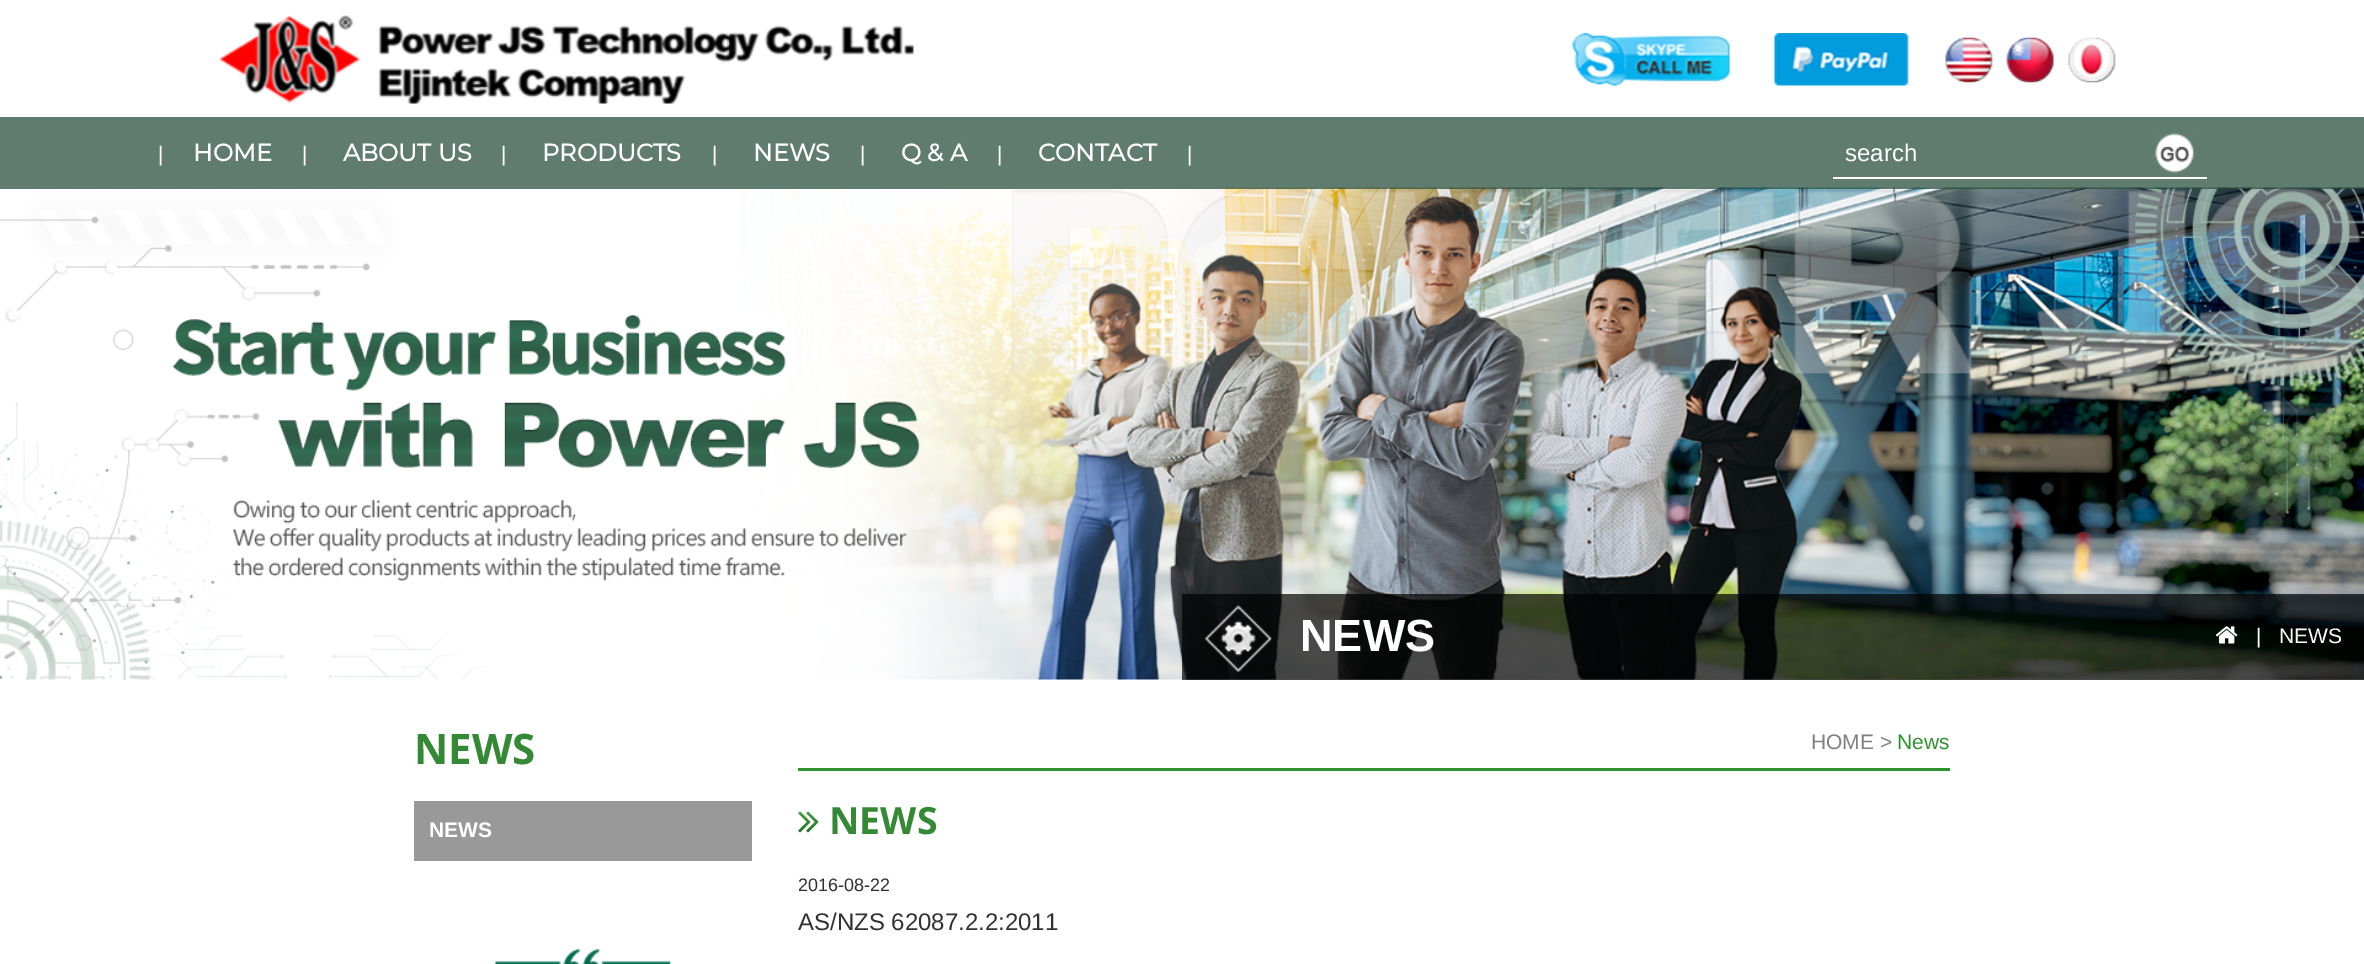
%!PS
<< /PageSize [2364 964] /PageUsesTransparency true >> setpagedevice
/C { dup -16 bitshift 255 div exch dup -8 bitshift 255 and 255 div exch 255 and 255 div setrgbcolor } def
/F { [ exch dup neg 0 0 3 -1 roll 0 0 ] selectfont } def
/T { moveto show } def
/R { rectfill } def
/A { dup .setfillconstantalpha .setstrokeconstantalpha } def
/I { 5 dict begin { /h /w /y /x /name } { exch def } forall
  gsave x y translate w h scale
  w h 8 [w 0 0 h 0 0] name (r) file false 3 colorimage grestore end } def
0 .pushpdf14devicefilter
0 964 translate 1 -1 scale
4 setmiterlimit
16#FFFFFF C
0 0 2364 964 R
(1.rgb) 219 15 695 89 I
(2.rgb) 1571 33 159 53 I
(3.rgb) 1774 33 135 53 I
(4.rgb) 1945 37 48 46 I
(5.rgb) 2006 37 48 46 I
(6.rgb) 2068 37 48 46 I
(8.rgb) 0 187 2364 493 I
0.72 A
16#234A38 C
0 117 2364 72 R
/LiberationSans-Regular 21 F
1 A
16#FFFFFF C
(|) 158 161 T
/Montserrat-Bold 24 F
(HOME) 193 161 T
/LiberationSans-Regular 21 F
(|) 302 161 T
/Montserrat-Bold 24 F
(ABOUT US) 343 161 T
/LiberationSans-Regular 21 F
(|) 501 161 T
/Montserrat-Bold 24 F
(PRODUCTS) 542 161 T
/LiberationSans-Regular 21 F
(|) 712 161 T
/Montserrat-Bold 24 F
(NEWS) 753 161 T
/LiberationSans-Regular 21 F
(|) 860 161 T
/Montserrat-Bold 24 F
(Q & A) 901 161 T
/LiberationSans-Regular 21 F
(|) 997 161 T
/Montserrat-Bold 24 F
(CONTACT) 1038 161 T
/LiberationSans-Regular 21 F
(|) 1187 161 T
1833 177 374 2 R
/LiberationSans-Regular 24 F
(search) 1845 161 T
(7.rgb) 2155 133 40 40 I
0.7 A
16#000000 C
1182 594 1182 86 R
1 A
(9.rgb) 1204 604 68 68 I
/LiberationSans-Bold 45 F
16#FFFFFF C
(NEWS) 1300 651 T
(10.rgb) 2215 626 23 18 I
/LiberationSans-Regular 21 F
(|   NEWS) 2256 643 T
/OpenSans-Bold 42 F
16#348935 C
(NEWS) 414 764 T
16#999999 C
414 801 338 60 R
/LiberationSans-Bold 21 F
16#FFFFFF C
(NEWS) 429 837 T
(11.rgb) 495 949 176 15 I
16#2E922F C
798 768 1152 3 R
/LiberationSans-Regular 21 F
16#817F7F C
(HOME >) 1811 749 T
16#2E922F C
(News) 1897 749 T
(12.rgb) 798 811 21 22 I
/OpenSans-Bold 37.5 F
16#348935 C
(NEWS) 829 834 T
/LiberationSans-Regular 18 F
16#313131 C
(2016-08-22) 798 891 T
/LiberationSans-Regular 24 F
(AS/NZS 62087.2.2:2011) 798 930 T
.poppdf14devicefilter showpage
